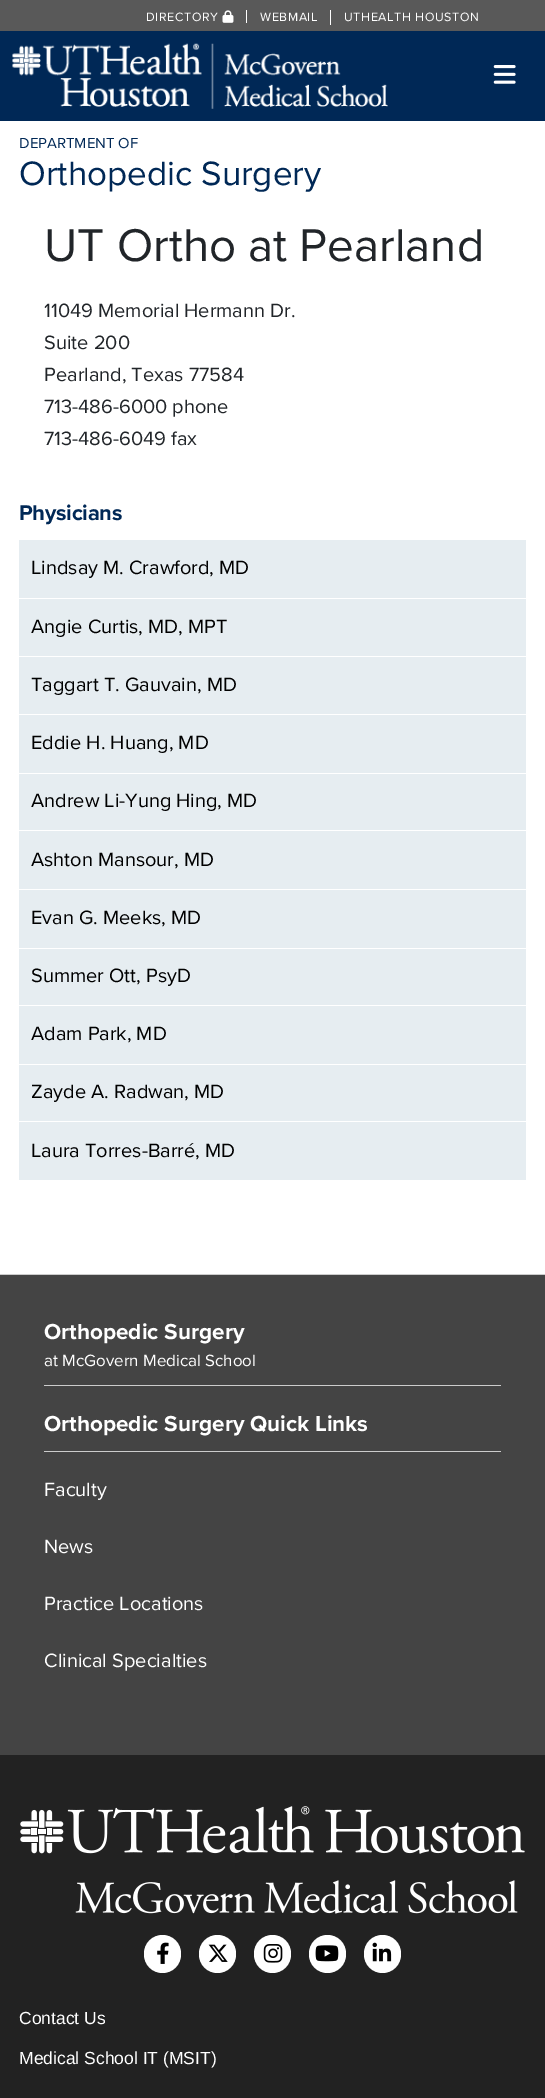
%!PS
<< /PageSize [545 2098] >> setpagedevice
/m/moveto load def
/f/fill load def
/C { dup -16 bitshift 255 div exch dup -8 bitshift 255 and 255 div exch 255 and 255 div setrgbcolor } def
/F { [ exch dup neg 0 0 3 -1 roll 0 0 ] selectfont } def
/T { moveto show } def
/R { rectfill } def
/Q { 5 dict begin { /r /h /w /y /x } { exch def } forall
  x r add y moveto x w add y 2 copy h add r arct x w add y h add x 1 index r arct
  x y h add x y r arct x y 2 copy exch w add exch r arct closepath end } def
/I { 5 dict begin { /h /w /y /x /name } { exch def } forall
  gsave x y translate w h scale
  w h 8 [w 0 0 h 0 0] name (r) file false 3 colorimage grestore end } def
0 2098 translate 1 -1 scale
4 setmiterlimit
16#FFFFFF C
0 0 545 2098 R
16#595959 C
0 0 545 31 R
16#FFFFFF C
246 10 1 13 R
/ProximaNova-Regular 12.5 F
146 21 m .6 0 (DIRECTORY) ashow
(1.rgb) 222 10 12 13 I
260 21 m .6 0 (WEBMAIL) ashow
330 10 1 15 R
344 21 m .6 0 (UTHEALTH HOUSTON) ashow
16#002856 C
0 31 545 90 R
(2.rgb) 12 43 376 66 I
(3.rgb) 493 65 23 19 I
/ProximaNova-Regular 15 F
(DEPARTMENT OF) 19 148 T
/ProximaNova-Regular 35 F
(Orthopedic Surgery) 19 185 T
/ProximaNova-Regular 47.5 F
16#212529 C
(UT Ortho at Pearland) 44 261 T
/ProximaNova-Regular 20 F
(11049 Memorial Hermann Dr.) 44 317 T
(Suite 200) 44 349 T
(Pearland, Texas 77584) 44 381 T
(713-486-6000 phone) 44 413 T
(713-486-6049 fax) 44 445 T
/ProximaNova-Bold 22 F
16#002856 C
19 520 m -.25 0 (Physicians) ashow
16#E6EDF1 C
19 540 507 58 R
/ProximaNova-Regular 20 F
16#000000 C
(Lindsay M. Crawford, MD) 31 574 T
16#E6EDF1 C
19 599 507 57 R
16#000000 C
(Angie Curtis, MD, MPT) 31 633 T
16#E6EDF1 C
19 657 507 57 R
16#000000 C
(Taggart T. Gauvain, MD) 31 691 T
16#E6EDF1 C
19 715 507 58 R
16#000000 C
(Eddie H. Huang, MD) 31 749 T
16#E6EDF1 C
19 774 507 56 R
16#000000 C
(Andrew Li-Yung Hing, MD) 31 807 T
16#E6EDF1 C
19 831 507 58 R
16#000000 C
(Ashton Mansour, MD) 31 866 T
16#E6EDF1 C
19 890 507 58 R
16#000000 C
(Evan G. Meeks, MD) 31 924 T
16#E6EDF1 C
19 949 507 56 R
16#000000 C
(Summer Ott, PsyD) 31 982 T
16#E6EDF1 C
19 1006 507 58 R
16#000000 C
(Adam Park, MD) 31 1040 T
16#E6EDF1 C
19 1065 507 56 R
16#000000 C
(Zayde A. Radwan, MD) 31 1098 T
16#E6EDF1 C
19 1122 507 58 R
16#000000 C
(Laura Torres-Barré, MD) 31 1157 T
16#444444 C
0 1275 545 480 R
16#CCCCCC C
0 1274 545 1 R
44 1385 457 1 R
/ProximaNova-Bold 22.5 F
16#FFFFFF C
(Orthopedic Surgery) 44 1339 T
/ProximaNova-Regular 16.9 F
(at McGovern Medical School) 44 1366 T
16#CCCCCC C
44 1451 457 1 R
/ProximaNova-Bold 22.5 F
16#FFFFFF C
(Orthopedic Surgery Quick Links) 44 1431 T
/ProximaNova-Regular 20 F
(Faculty) 44 1496 T
(News) 44 1553 T
(Practice Locations) 44 1610 T
(Clinical Specialties) 44 1667 T
16#222222 C
0 1755 545 343 R
(4.rgb) 20 1806 505 108 I
16#FFFFFF C
144 1935 37 38 18.5 Q f
(5.rgb) 157 1942 12 22 I
199 1935 37 38 18.5 Q f
(6.rgb) 208 1944 20 18 I
254 1935 37 38 18.5 Q f
(7.rgb) 263 1944 20 19 I
309 1935 37 38 18.5 Q f
(8.rgb) 315 1945 24 17 I
364 1935 37 38 18.5 Q f
(9.rgb) 372 1942 20 20 I
/LiberationSans-Regular 17.5 F
(Contact Us) 19 2024 T
(Medical School IT \(MSIT\)) 19 2064 T
showpage
